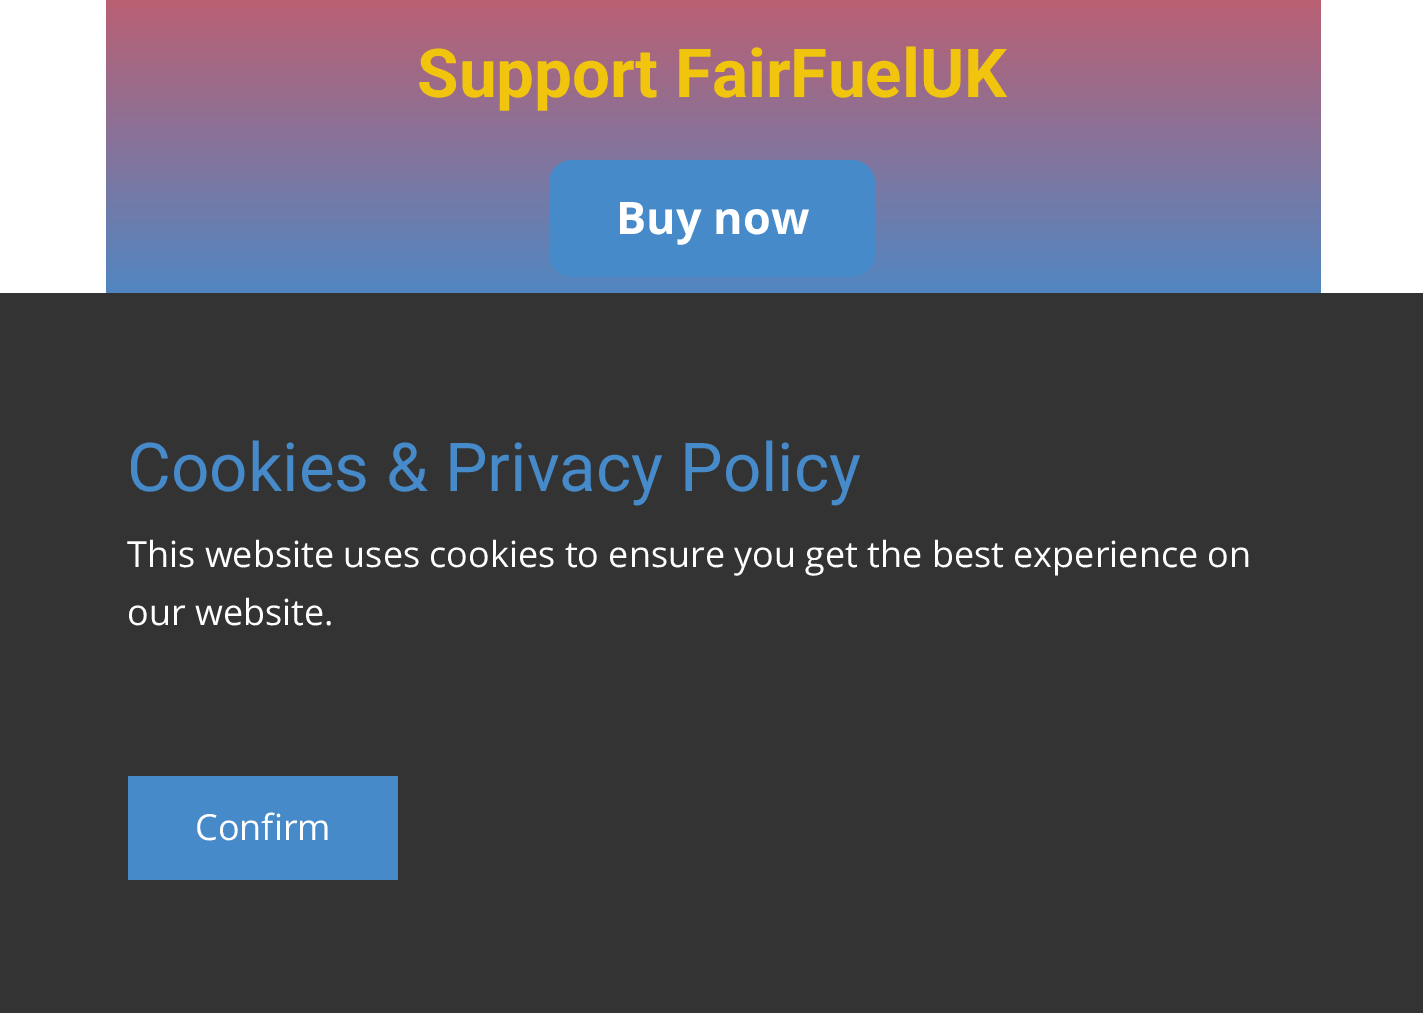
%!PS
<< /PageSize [1423 1013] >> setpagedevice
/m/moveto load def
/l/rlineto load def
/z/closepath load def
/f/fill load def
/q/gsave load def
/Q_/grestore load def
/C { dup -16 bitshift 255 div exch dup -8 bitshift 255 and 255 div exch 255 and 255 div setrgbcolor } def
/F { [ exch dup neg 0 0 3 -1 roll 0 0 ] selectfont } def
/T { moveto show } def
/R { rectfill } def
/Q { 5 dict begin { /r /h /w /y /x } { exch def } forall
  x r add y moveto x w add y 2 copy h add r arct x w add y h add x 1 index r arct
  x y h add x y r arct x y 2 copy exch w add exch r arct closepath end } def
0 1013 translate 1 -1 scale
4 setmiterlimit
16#FFFFFF C
0 0 1423 1013 R
q 106 0 m 1215 0 l 0 293 l -1215 0 l z clip newpath
<< /ShadingType 2 /ColorSpace /DeviceRGB /Coords [713 -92 713 322] /Extend [true true] /Function << /FunctionType 2 /Domain [0 1] /C0 [.859 .329 .353] /C1 [.278 .541 .788] /N 1 >> >> shfill Q_
/Roboto-Bold 67.5 F
16#F1C50E C
(Support FairFuelUK) 417 97 T
16#478AC9 C
549 160 326 117 23 Q f
/OpenSans-Bold 45 F
16#FFFFFF C
(Buy now) 616 234 T
16#333333 C
0 293 1423 720 R
/Roboto-Regular 67.5 F
16#478AC9 C
(Cookies & Privacy Policy) 127 491 T
/OpenSans-Regular 36 F
16#FFFFFF C
(This website uses cookies to ensure you get the best experience on) 127 567 T
(our website.) 127 625 T
16#478AC9 C
128 776 270 104 R
16#FFFFFF C
(Confirm) 195 840 T
showpage
